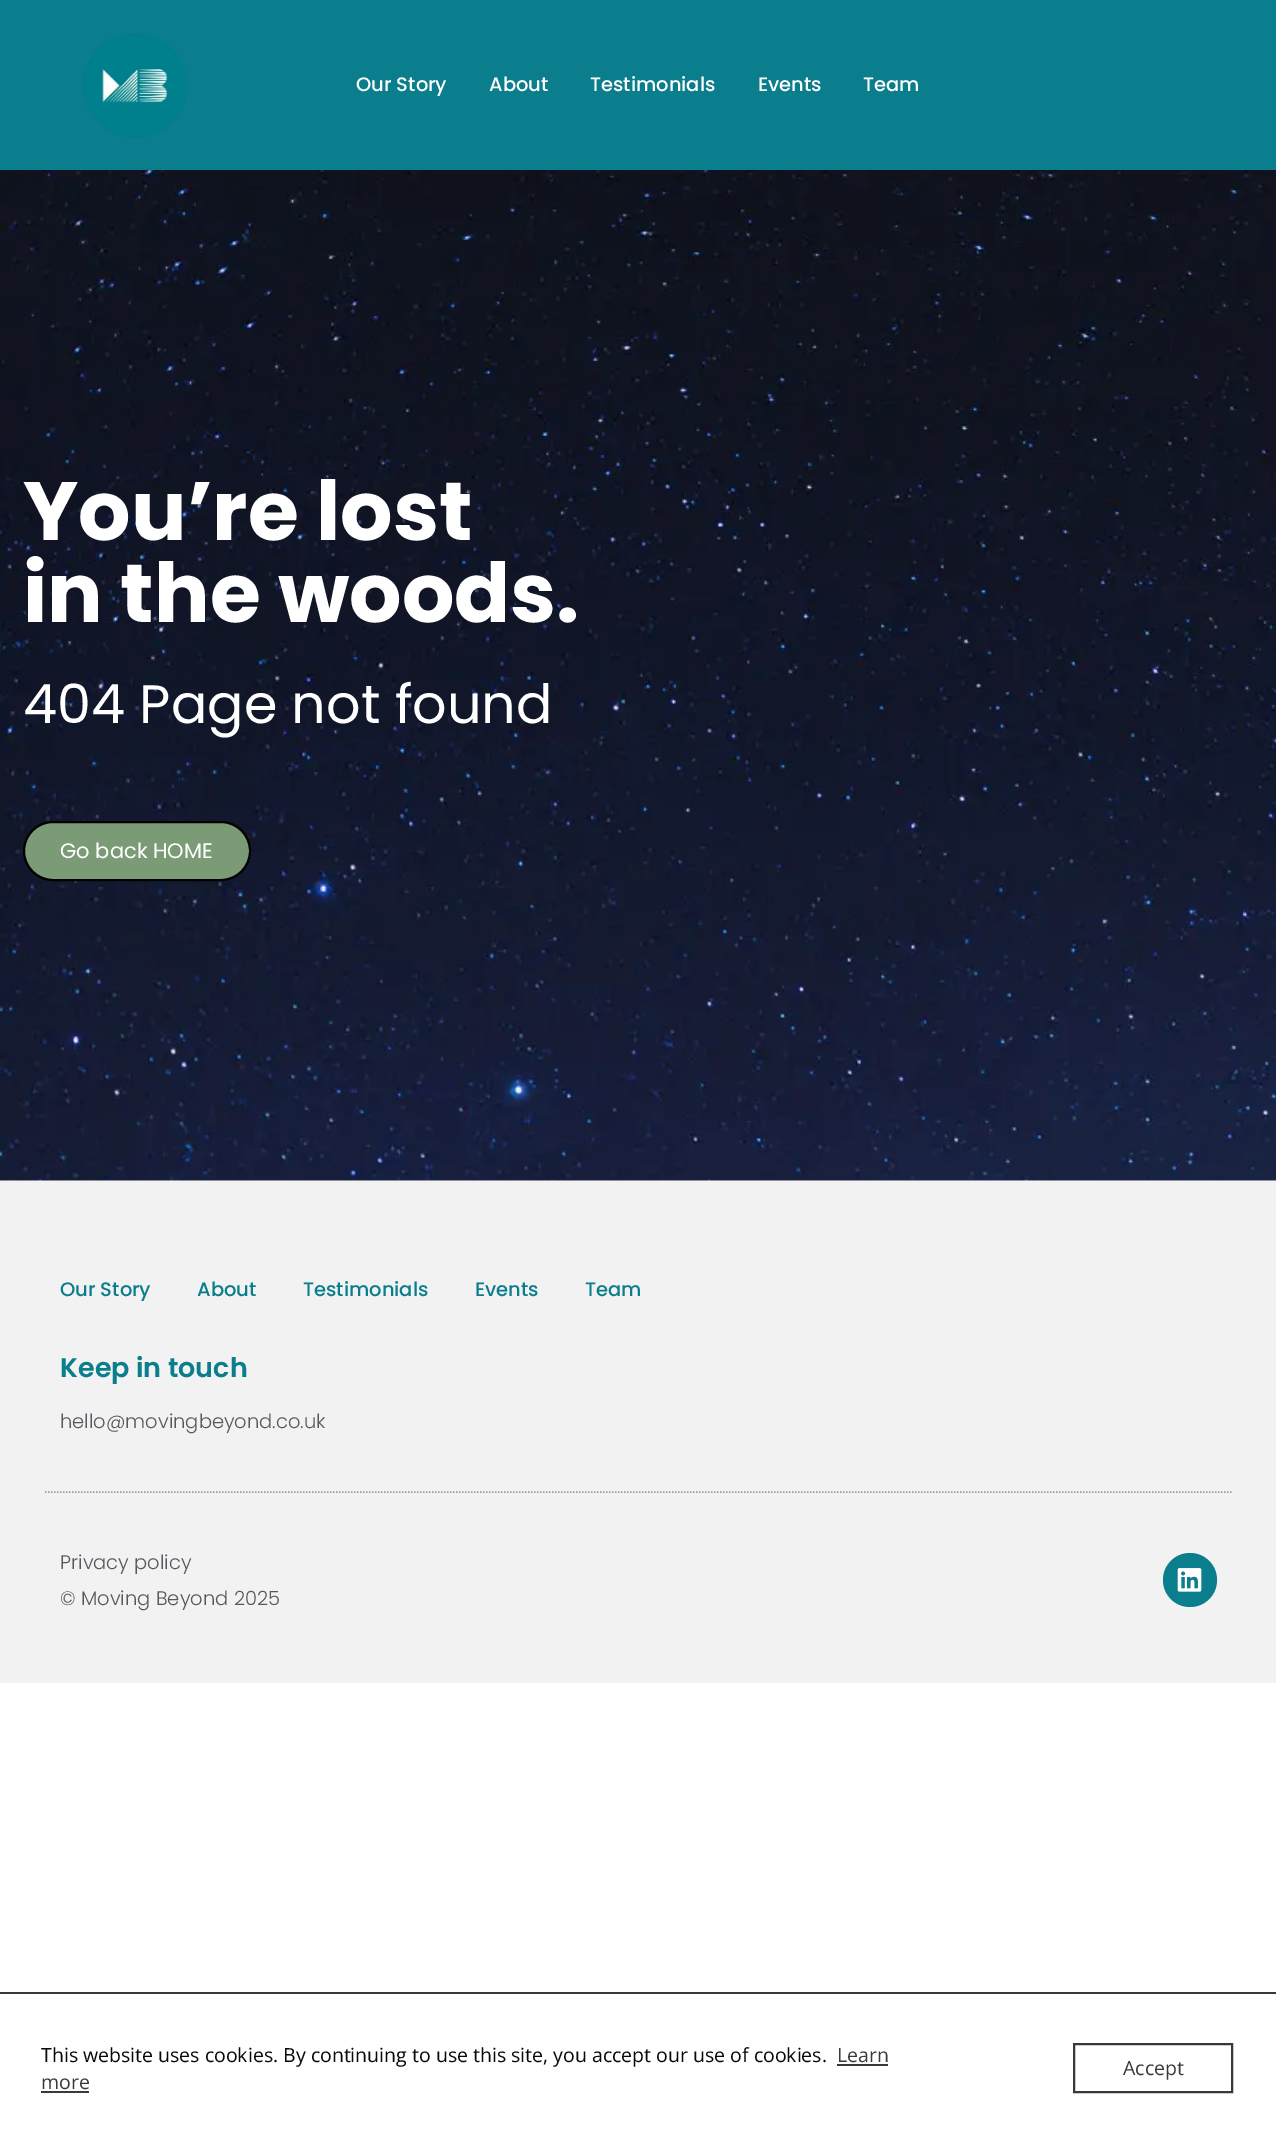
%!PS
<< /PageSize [1276 2141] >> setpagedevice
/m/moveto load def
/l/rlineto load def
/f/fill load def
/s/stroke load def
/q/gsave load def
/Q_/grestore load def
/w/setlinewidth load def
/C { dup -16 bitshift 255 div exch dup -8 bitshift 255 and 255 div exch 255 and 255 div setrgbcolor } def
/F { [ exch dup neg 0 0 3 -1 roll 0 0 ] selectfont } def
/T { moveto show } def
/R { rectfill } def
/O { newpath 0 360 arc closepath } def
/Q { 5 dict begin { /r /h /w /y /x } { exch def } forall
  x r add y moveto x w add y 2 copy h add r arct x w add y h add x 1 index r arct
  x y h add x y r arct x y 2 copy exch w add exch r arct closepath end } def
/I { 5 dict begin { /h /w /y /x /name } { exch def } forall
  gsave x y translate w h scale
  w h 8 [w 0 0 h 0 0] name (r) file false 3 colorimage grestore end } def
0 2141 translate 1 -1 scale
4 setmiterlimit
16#FFFFFF C
0 0 1276 2141 R
16#0A7E8C C
0 0 1276 170 R
(1.rgb) 82 33 106 105 I
/Poppins-Medium 19.5 F
16#FFFFFF C
(Our Story) 356 91 T
(About) 489 91 T
(Testimonials) 590 91 T
(Events) 758 91 T
(Team) 863 91 T
(2.rgb) 0 170 1276 1011 I
/Poppins-Bold 82.5 F
(You’re lost) 23 540 T
(in the woods.) 23 622 T
/Poppins-Regular 54 F
(404 Page not found) 23 723 T
16#7A9B76 C
24 822 226 58 29 Q q f Q_
16#020101 C
2 w
s
/Poppins-Regular 21 F
16#FFFFFF C
(Go back HOME) 60 858 T
16#F2F2F2 C
0 1181 1276 502 R
16#9B9B9B C
1.5 w
[1.5 1.5] 0 setdash
45 1492 m 1186.5 0 l s
/Poppins-Medium 19.5 F
16#0A7E8C C
(Our Story) 60 1296 T
(About) 197 1296 T
(Testimonials) 303 1296 T
(Events) 475 1296 T
(Team) 585 1296 T
/Poppins-SemiBold 27 F
(Keep in touch) 60 1377 T
/Poppins-Light 19.5 F
16#54595F C
(hello@movingbeyond.co.uk) 60 1428 T
(Privacy policy) 60 1569 T
(© Moving Beyond 2025) 60 1605 T
16#0A7E8C C
1190 1580 27 O f
(3.rgb) 1177 1568 25 24 I
16#393939 C
0 1992 1276 2 R
/OpenSans-Regular 19.5 F
16#080808 C
(This website uses cookies. By continuing to use this site, you accept our use of cookies.) 41 2062 T
16#393939 C
(Learn) 837 2062 T
837 2064 51 2 R
(more) 41 2089 T
41 2091 48 2 R
2 w
[] 0 setdash
1074 2044 158 48 rectstroke
(Accept) 1123 2075 T
showpage
